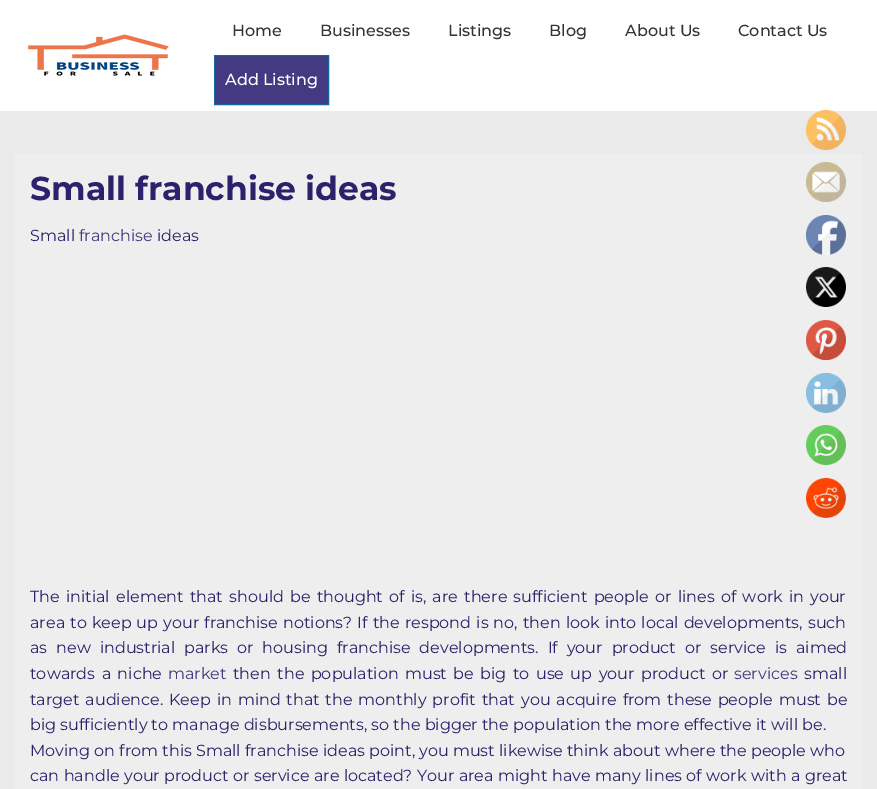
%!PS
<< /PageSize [877 789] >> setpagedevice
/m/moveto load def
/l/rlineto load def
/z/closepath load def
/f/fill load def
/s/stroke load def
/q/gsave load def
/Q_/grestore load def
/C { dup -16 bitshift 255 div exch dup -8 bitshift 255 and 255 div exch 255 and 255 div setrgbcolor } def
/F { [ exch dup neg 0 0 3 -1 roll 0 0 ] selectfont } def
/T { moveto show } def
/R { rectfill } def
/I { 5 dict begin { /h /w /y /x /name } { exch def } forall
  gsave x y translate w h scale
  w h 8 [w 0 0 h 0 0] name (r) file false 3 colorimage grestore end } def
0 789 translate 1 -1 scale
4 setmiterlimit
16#EAEAEA C
0 0 877 789 R
16#FFFFFF C
0 0 877 111 R
(1.rgb) 28 34 141 42 I
/Montserrat-Medium 16 F
16#333333 C
(Home) 232 36 T
(Businesses) 320 36 T
(Listings) 448 36 T
(Blog) 549 36 T
(About Us) 625 36 T
(Contact Us) 738 36 T
16#443A82 C
214.5 55.5 m 114 0 l 0 49 l -114 0 l z q f Q_
16#10659C C
s
16#FFFFFF C
(Add Listing) 225 85 T
16#EEEEEE C
15 154 847 635 R
/Montserrat-Bold 33 F
16#2B226B C
(Small franchise ideas) 30 200 T
/Montserrat-Regular 16 F
(Small) 30 241 T
16#443A82 C
(franchise) 79 241 T
16#2B226B C
(ideas) 157 241 T
30 602 m 2 0 32 (The initial element that should be thought of is, are there sufficient people or lines of work in your) widthshow
30 628 m .9 0 32 (area to keep up your franchise notions? If the respond is no, then look into local developments, such) widthshow
30 653 m 4.75 0 32 (as new industrial parks or housing franchise developments. If your product or service is aimed) widthshow
30 679 m 2.25 0 32 (towards a niche) widthshow
16#443A82 C
(market) 168 679 T
16#2B226B C
233 679 m 2.25 0 32 (then the population must be big to use up your product or) widthshow
16#443A82 C
(services) 734 679 T
16#2B226B C
(small) 804 679 T
30 705 m 1.7 0 32 (target audience. Keep in mind that the monthly profit that you acquire from these people must be) widthshow
(big sufficiently to manage disbursements, so the bigger the population the more effective it will be.) 30 730 T
(Moving on from this Small franchise ideas point, you must likewise think about where the people who) 30 756 T
30 781 m .2 0 32 (can handle your product or service are located? Your area might have many lines of work with a great) widthshow
(2.rgb) 806 110 40 40 I
(3.rgb) 806 162 40 40 I
(4.rgb) 806 215 40 40 I
(5.rgb) 806 267 40 40 I
(6.rgb) 806 320 40 40 I
(7.rgb) 806 373 40 40 I
(8.rgb) 806 425 40 40 I
(9.rgb) 806 478 40 40 I
showpage
